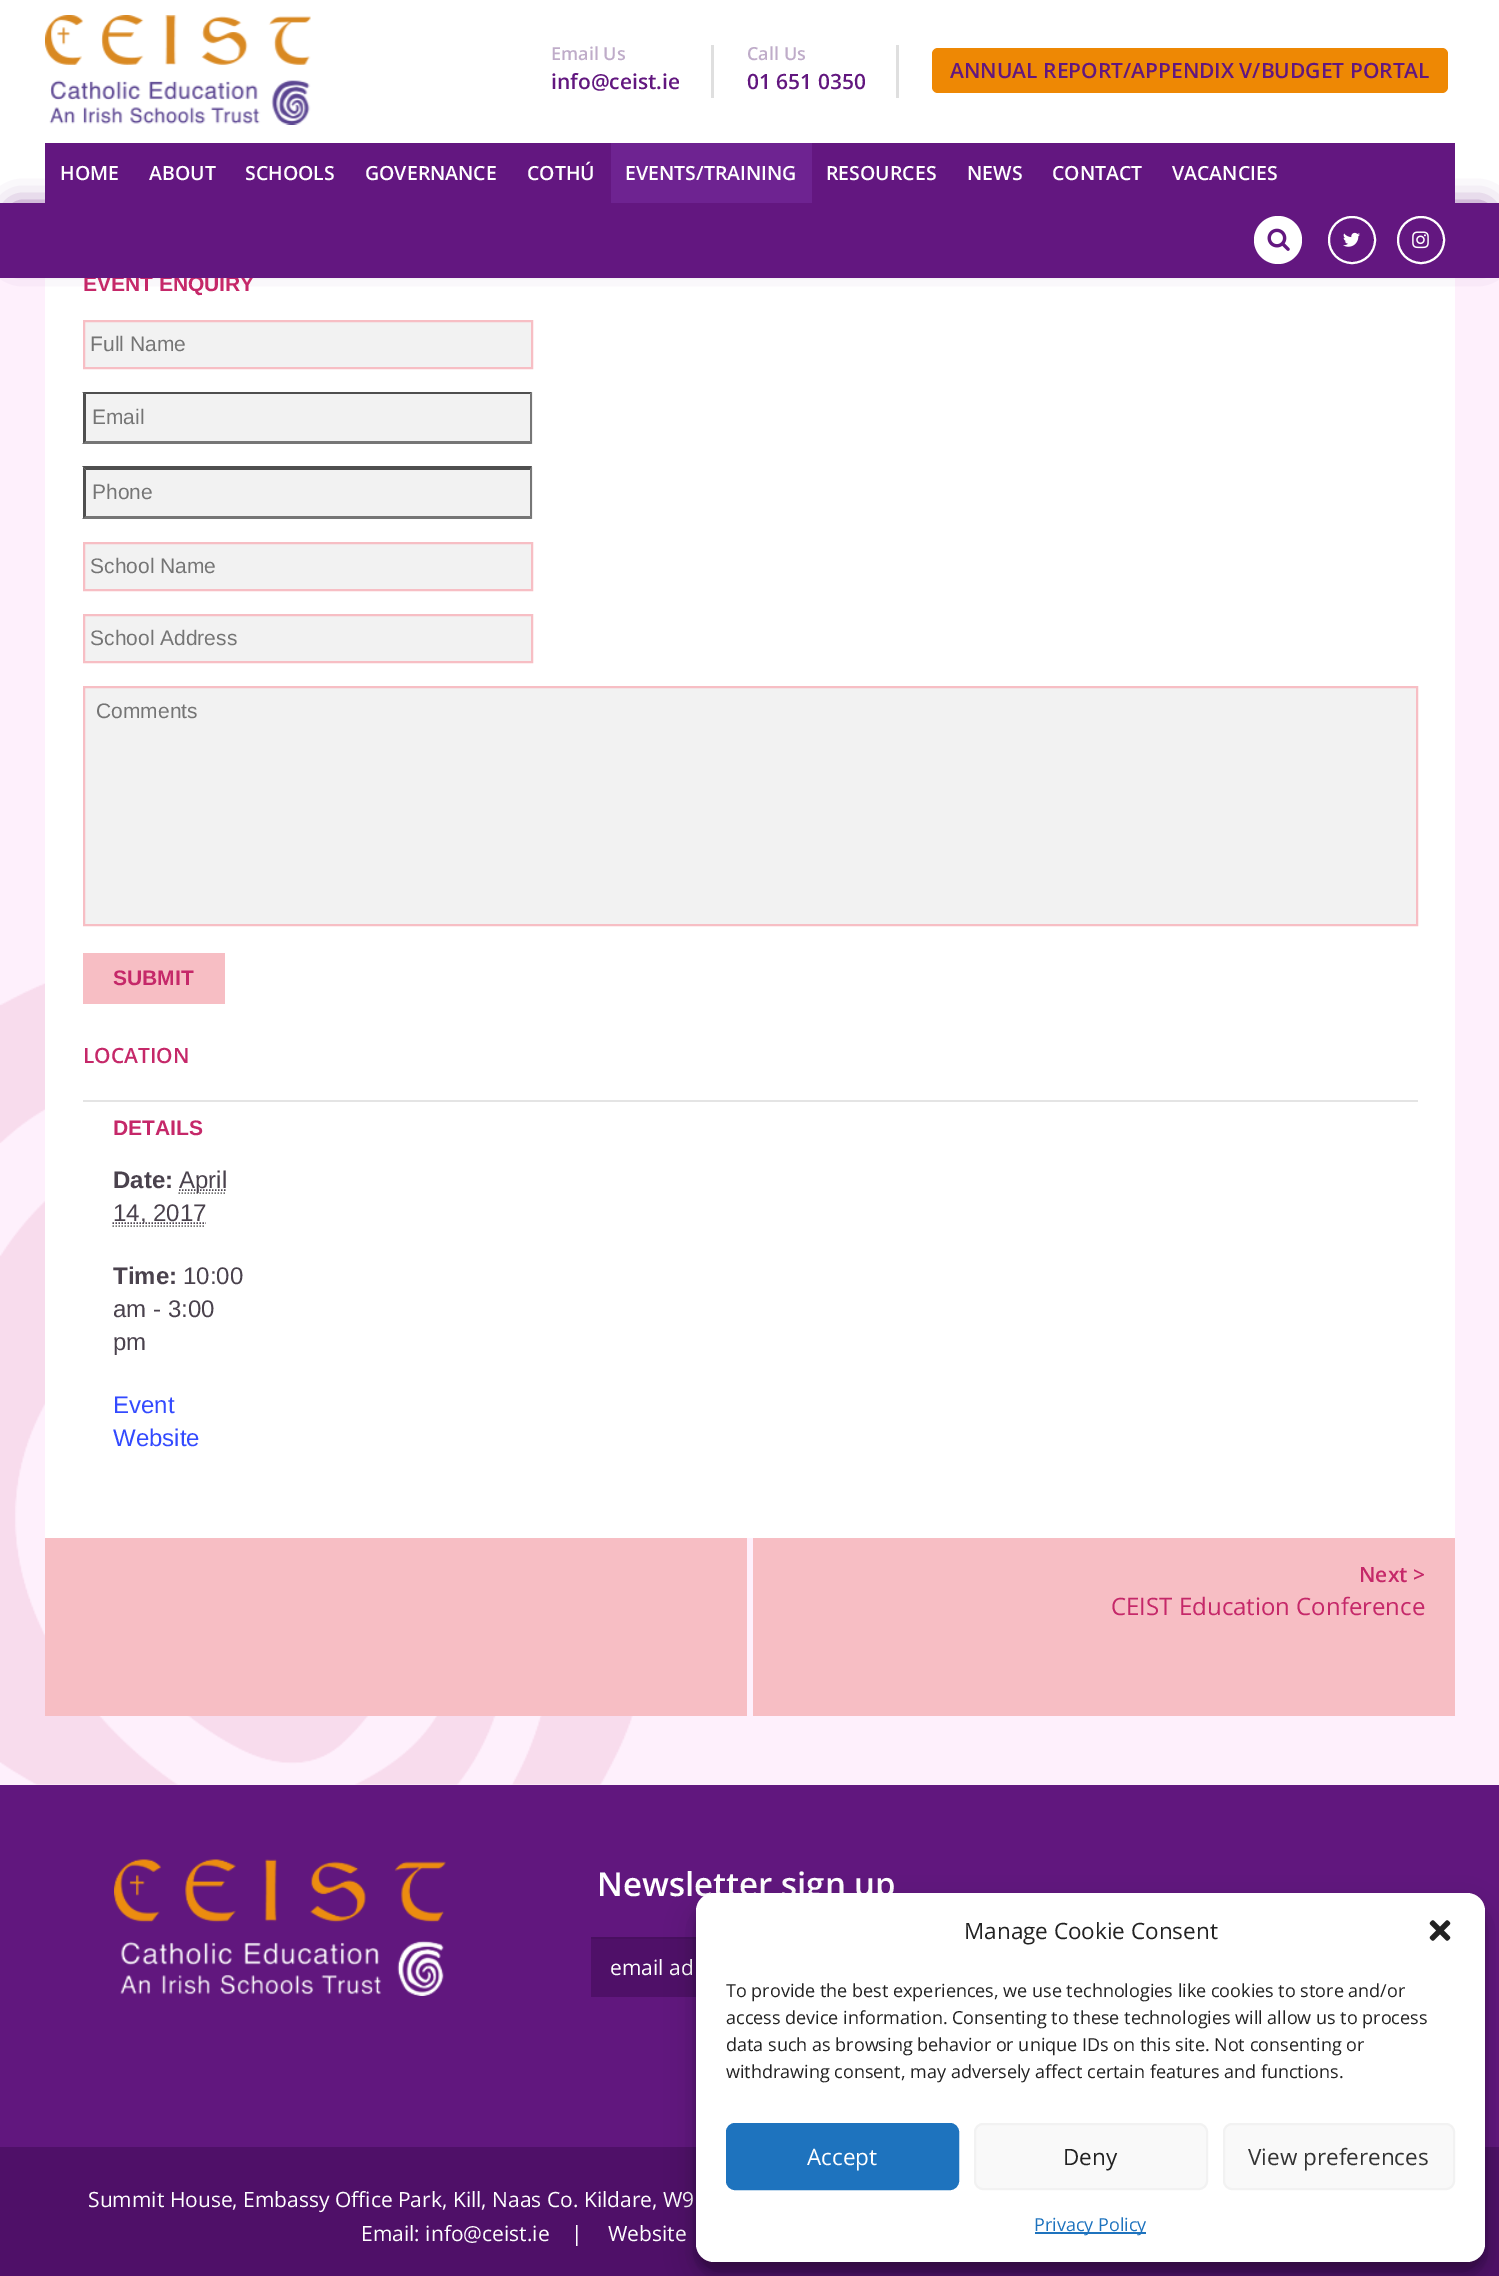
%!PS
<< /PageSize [1499 2276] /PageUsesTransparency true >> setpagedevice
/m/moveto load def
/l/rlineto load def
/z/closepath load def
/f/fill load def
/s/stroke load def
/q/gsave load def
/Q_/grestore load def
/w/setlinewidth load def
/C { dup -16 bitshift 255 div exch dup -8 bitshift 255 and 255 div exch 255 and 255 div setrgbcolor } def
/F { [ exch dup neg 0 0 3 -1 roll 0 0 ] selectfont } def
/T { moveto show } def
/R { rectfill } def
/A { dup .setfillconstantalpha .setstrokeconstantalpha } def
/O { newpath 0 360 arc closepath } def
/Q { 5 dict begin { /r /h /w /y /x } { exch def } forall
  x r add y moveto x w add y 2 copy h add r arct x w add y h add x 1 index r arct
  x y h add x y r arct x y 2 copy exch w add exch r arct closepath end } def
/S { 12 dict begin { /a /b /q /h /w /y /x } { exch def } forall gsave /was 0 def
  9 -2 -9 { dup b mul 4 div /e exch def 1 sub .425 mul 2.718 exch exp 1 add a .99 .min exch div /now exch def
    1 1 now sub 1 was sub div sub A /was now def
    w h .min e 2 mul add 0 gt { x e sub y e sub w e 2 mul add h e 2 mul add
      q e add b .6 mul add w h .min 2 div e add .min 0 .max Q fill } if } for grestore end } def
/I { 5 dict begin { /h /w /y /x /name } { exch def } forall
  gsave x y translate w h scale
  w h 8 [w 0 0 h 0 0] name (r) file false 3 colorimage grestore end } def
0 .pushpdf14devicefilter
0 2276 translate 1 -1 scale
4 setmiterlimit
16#FEF0FC C
0 0 1499 2276 R
16#FFFFFF C
0 0 1499 203 R
(1.rgb) 45 15 266 110 I
/OpenSans-SemiBold 18 F
16#BFACC9 C
(Email Us) 551 60 T
16#DFDFDF C
711 45 3 53 R
/OpenSans-SemiBold 21 F
16#62177F C
(info@ceist.ie) 551 89 T
/OpenSans-SemiBold 18 F
16#BFACC9 C
(Call Us) 747 60 T
16#DFDFDF C
896 45 3 53 R
/OpenSans-SemiBold 21 F
16#62177F C
(01 651 0350) 747 89 T
16#EE8804 C
932 48 516 45 6 Q f
16#62177F C
(ANNUAL REPORT/APPENDIX V/BUDGET PORTAL) 950 78 T
(5.rgb) 0 983 633 802 I
16#FFFFFF C
45 278 1410 1260 R
16#651780 C
15 210 1470 45 0 14 1 S
16#631780 C
45 143 1410 60 R
/OpenSans-SemiBold 19.5 F
16#FFFFFF C
(HOME) 60 180 T
(ABOUT) 149 180 T
(SCHOOLS) 245 180 T
(GOVERNANCE) 365 180 T
(COTHÚ) 527 180 T
16#6E2391 C
611 143 201 60 R
16#FFFFFF C
(EVENTS/TRAINING) 625 180 T
(RESOURCES) 826 180 T
(NEWS) 967 180 T
(CONTACT) 1052 180 T
(VACANCIES) 1172 180 T
/LiberationSans-Bold 21 F
16#C52869 C
(EVENT ENQUIRY) 83 291 T
16#631780 C
0 203 1499 75 R
16#FFFFFF C
1278 240 24 O f
(2.rgb) 1267 228 23 23 I
2 w
1352 240 23 O s
(3.rgb) 1343 232 17 15 I
1421 240 23 O s
(4.rgb) 1412 231 17 18 I
16#F2F2F2 C
84 321 m 448 0 l 0 47 l -448 0 l z q f Q_
16#F7BEC4 C
s
/LiberationSans-Regular 21 F
16#757575 C
(Full Name) 90 351 T
16#F2F2F2 C
83 392 450 52 R
16#4F4F4F C
82 392 m 450 0 l -2 2 l -444 0 l z f
16#767676 C
532 392 m 0 52 l -2 -3 l 0 -47 l z f
532 444 m -450 0 l 4 -3 l 444 0 l z f
q
83 0 1335 1485 rectclip
16#4F4F4F C
82 444 m 0 -52 l 4 2 l 0 47 l z f
Q_
16#757575 C
(Email) 92 424 T
16#F2F2F2 C
83 467 450 52 R
16#4F4F4F C
82 466 m 450 0 l -2 4 l -444 0 l z f
16#767676 C
532 466 m 0 53 l -2 -3 l 0 -46 l z f
532 519 m -450 0 l 4 -3 l 444 0 l z f
q
83 0 1335 1485 rectclip
16#4F4F4F C
82 519 m 0 -53 l 4 4 l 0 46 l z f
Q_
16#757575 C
(Phone) 92 499 T
16#F2F2F2 C
84 543 m 448 0 l 0 47 l -448 0 l z q f Q_
16#F7BEC4 C
s
16#757575 C
(School Name) 90 573 T
16#F2F2F2 C
84 615 m 448 0 l 0 47 l -448 0 l z q f Q_
16#F7BEC4 C
s
16#757575 C
(School Address) 90 645 T
16#F2F2F2 C
84 687 m 1333 0 l 0 238 l -1333 0 l z q f Q_
16#F7BEC4 C
s
16#757575 C
(Comments) 96 718 T
16#F7BEC4 C
83 953 142 51 R
/LiberationSans-Bold 21 F
16#C52869 C
(SUBMIT) 113 985 T
/OpenSans-SemiBold 21 F
(LOCATION) 83 1063 T
16#E4E4E4 C
83 1100 1335 2 R
/LiberationSans-Bold 21 F
16#C52869 C
(DETAILS) 113 1135 T
/LiberationSans-Bold 24 F
16#4A424D C
(Date:) 113 1188 T
16#777777 C
1.5 w
[1.5 1.5] 0 setdash
178.5 1193 m 48 0 l s
16#4A424D C
179 1190 m 48 0 l s
/LiberationSans-Regular 24 F
(April) 179 1188 T
112.5 1223 m 93.5 0 l s
(14, 2017) 113 1221 T
16#777777 C
112.5 1226 m 93 0 l s
/LiberationSans-Bold 24 F
16#4A424D C
(Time:) 113 1284 T
/LiberationSans-Regular 24 F
(10:00) 183 1284 T
(am - 3:00) 113 1317 T
(pm) 113 1350 T
16#334AFF C
(Event) 113 1413 T
(Website) 113 1446 T
16#F7BEC4 C
45 1538 702 178 R
753 1538 702 178 R
/OpenSans-SemiBold 21 F
16#C52869 C
(Next >) 1359 1582 T
/OpenSans-Regular 24 F
(CEIST Education Conference) 1111 1615 T
16#61177E C
0 1785 1499 362 R
(6.rgb) 114 1859 332 137 I
/OpenSans-SemiBold 33 F
16#FFFFFF C
(Newsletter sign up) 597 1896 T
16#4F1068 C
591 1939 105 58 R
16#490F60 C
591 1937 105 2 R
/OpenSans-Regular 21 F
16#FFFFFF C
(email ad) 610 1975 T
16#4F1068 C
0 2147 1499 129 R
16#FFFFFF C
(Summit House, Embassy Office Park, Kill, Naas Co. Kildare, W9) 88 2207 T
(Email: info@ceist.ie) 361 2241 T
(|) 571 2241 T
(Website) 608 2241 T
16#000000 C
696 1902 789 369 18 4.5 .23 S
696 1908 789 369 18 15 .19 S
16#FFFFFF C
696 1893 789 369 18 Q f
/OpenSans-Regular 22.5 F
16#222222 C
(Manage Cookie Consent) 964 1939 T
(7.rgb) 1429 1920 22 21 I
/OpenSans-Regular 18 F
(To provide the best experiences, we use technologies like cookies to store and/or) 726 1997 T
(access device information. Consenting to these technologies will allow us to process) 726 2024 T
(data such as browsing behavior or unique IDs on this site. Not consenting or) 726 2051 T
(withdrawing consent, may adversely affect certain features and functions.) 726 2078 T
16#1E73BE C
727 2124 231 65 8 Q q f Q_
2 w
[] 0 setdash
s
/OpenSans-Regular 22.5 F
16#FFFFFF C
(Accept) 807 2165 T
16#F9F9F9 C
975 2124 232 65 8 Q q f Q_
16#F2F2F2 C
s
16#222222 C
(Deny) 1063 2165 T
16#F9F9F9 C
1224 2124 230 65 8 Q q f Q_
16#F2F2F2 C
s
16#333333 C
(View preferences) 1248 2165 T
16#1E73BE C
1035 2232 111 2 R
/OpenSans-Regular 18 F
(Privacy Policy) 1034 2231 T
.poppdf14devicefilter showpage
